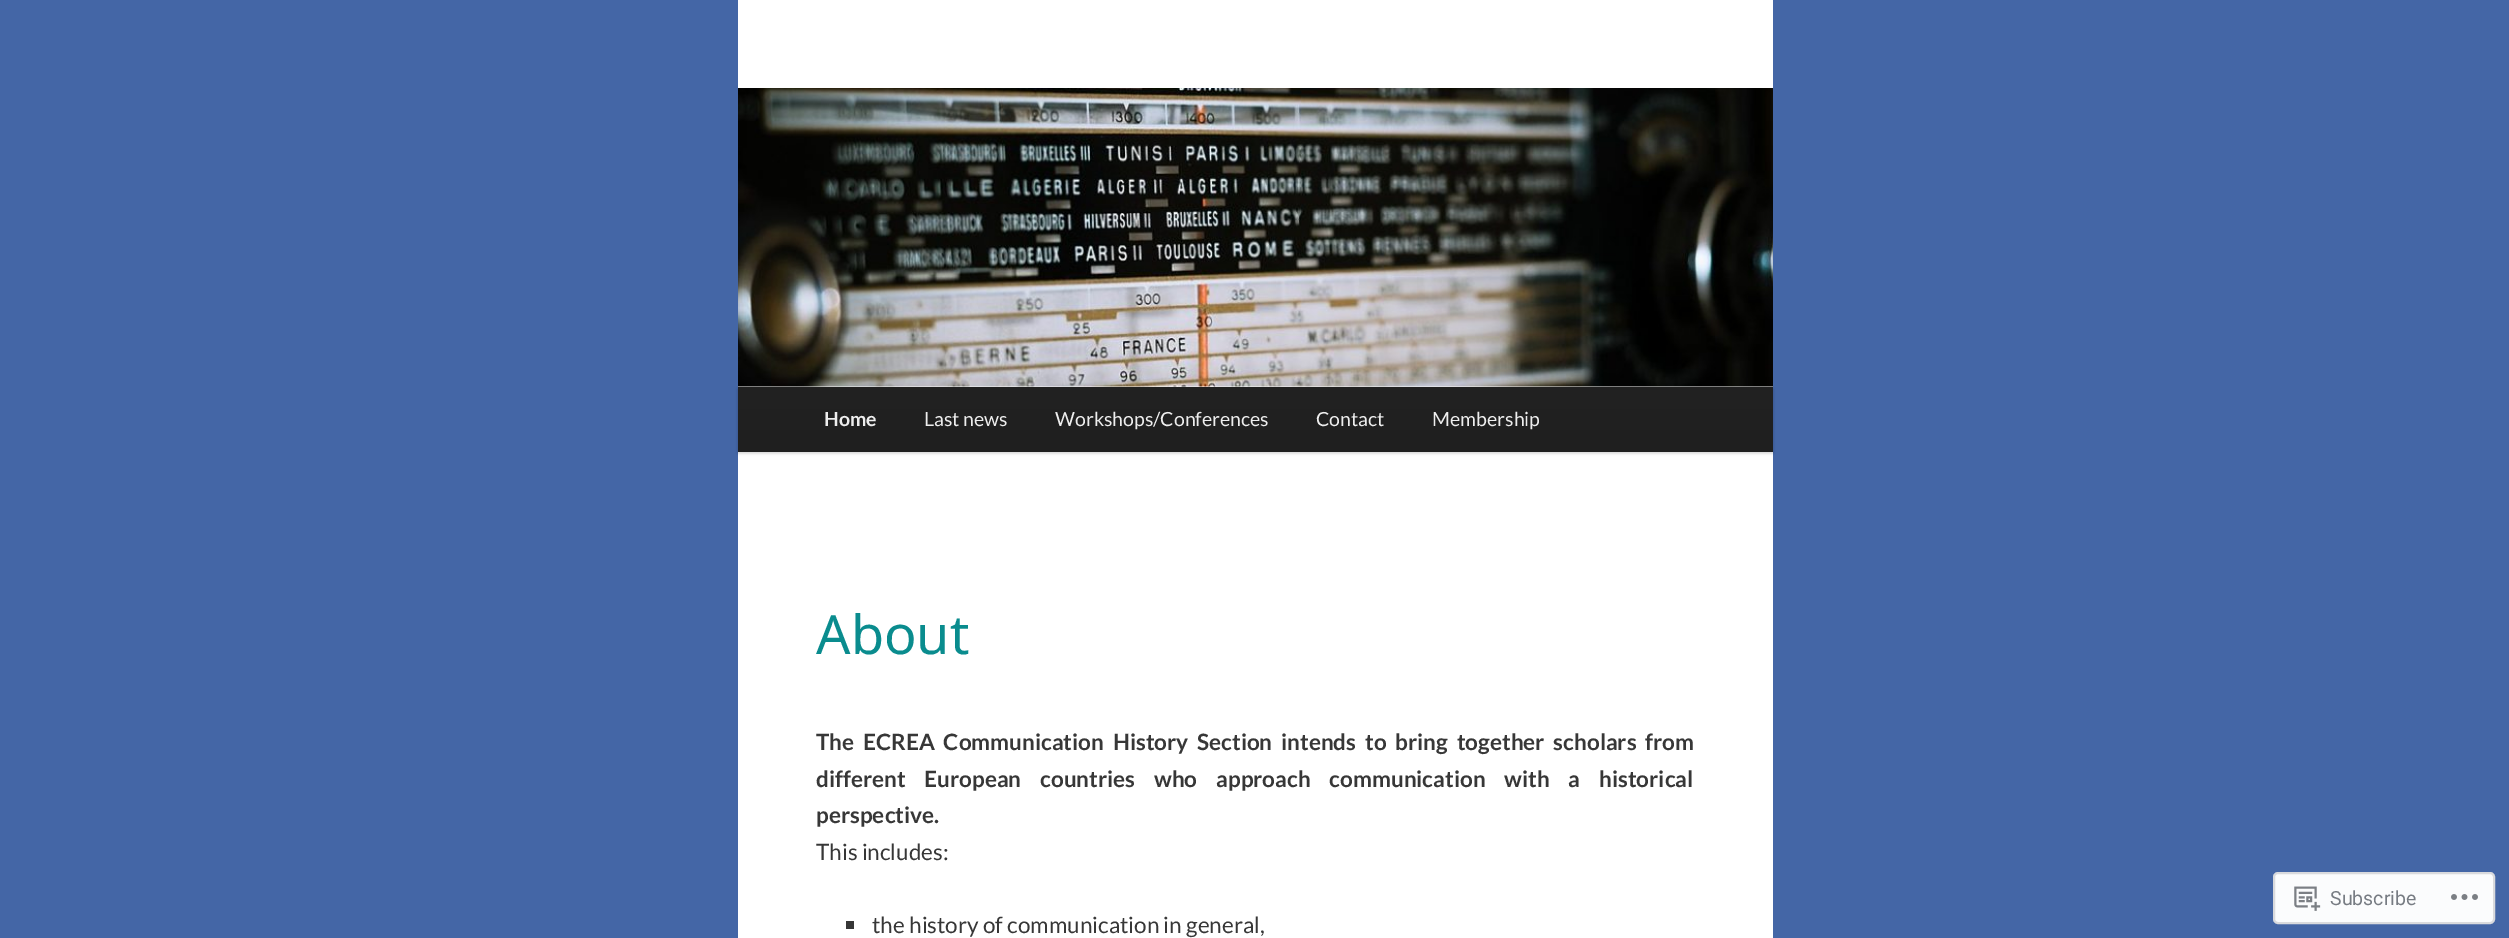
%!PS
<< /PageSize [2509 938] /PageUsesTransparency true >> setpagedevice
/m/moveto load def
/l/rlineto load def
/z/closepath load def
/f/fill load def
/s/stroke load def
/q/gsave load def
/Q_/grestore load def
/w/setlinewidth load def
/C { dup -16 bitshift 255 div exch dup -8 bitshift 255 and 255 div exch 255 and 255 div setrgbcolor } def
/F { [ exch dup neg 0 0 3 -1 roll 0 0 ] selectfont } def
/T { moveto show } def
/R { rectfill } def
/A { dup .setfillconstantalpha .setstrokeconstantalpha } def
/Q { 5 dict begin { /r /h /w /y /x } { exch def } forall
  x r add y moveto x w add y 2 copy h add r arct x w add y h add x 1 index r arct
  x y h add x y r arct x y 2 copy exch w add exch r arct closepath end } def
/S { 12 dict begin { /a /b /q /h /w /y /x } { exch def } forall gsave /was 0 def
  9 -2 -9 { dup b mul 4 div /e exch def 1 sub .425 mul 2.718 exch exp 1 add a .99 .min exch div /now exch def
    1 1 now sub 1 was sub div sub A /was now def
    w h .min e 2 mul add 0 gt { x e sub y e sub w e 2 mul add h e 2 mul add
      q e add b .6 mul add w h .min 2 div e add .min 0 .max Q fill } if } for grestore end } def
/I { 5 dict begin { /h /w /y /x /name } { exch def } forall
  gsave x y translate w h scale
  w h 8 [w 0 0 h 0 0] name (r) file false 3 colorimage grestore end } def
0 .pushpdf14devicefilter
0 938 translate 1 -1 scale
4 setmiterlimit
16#4466A6 C
0 0 2509 938 R
16#FFFFFF C
738 0 1035 938 R
16#000000 C
738 389 1035 64 0 1.5 .2 S
(1.rgb) 738 88 1035 299 I
q 738 387 m 1035 0 l 0 65 l -1035 0 l z clip newpath
<< /ShadingType 2 /ColorSpace /DeviceRGB /Coords [1256 387 1256 452] /Extend [true true] /Function << /FunctionType 2 /Domain [0 1] /C0 [.133 .133 .133] /C1 [.122 .122 .122] /N 1 >> >> shfill Q_
/Lato-Bold 19.5 F
16#EEEEEE C
(Home) 824 426 T
/Lato-Regular 19.5 F
(Last news) 924 426 T
(Workshops/Conferences) 1055 426 T
(Contact) 1316 426 T
(Membership) 1432 426 T
/NotoSans-Regular 54 F
16#0A8C8E C
(About) 816 654 T
/Lato-Bold 22.5 F
16#373737 C
816 750 m 4.5 0 32 (The ECREA Communication History Section intends to bring together scholars from) widthshow
816 787 m 14.5 0 32 (different European countries who approach communication with a historical) widthshow
(perspective.) 816 823 T
/Lato-Regular 22.5 F
(This includes:) 816 860 T
846 921 8 8 R
(the history of communication in general,) 872 933 T
16#FBFCFD C
2274 873 220 50 4 Q q f Q_
16#D9DADD C
2 w
s
(2.rgb) 2294 886 27 25 I
/Roboto-Regular 19.5 F
16#777C83 C
(Subscribe) 2330 905 T
(3.rgb) 2451 894 27 6 I
.poppdf14devicefilter showpage
